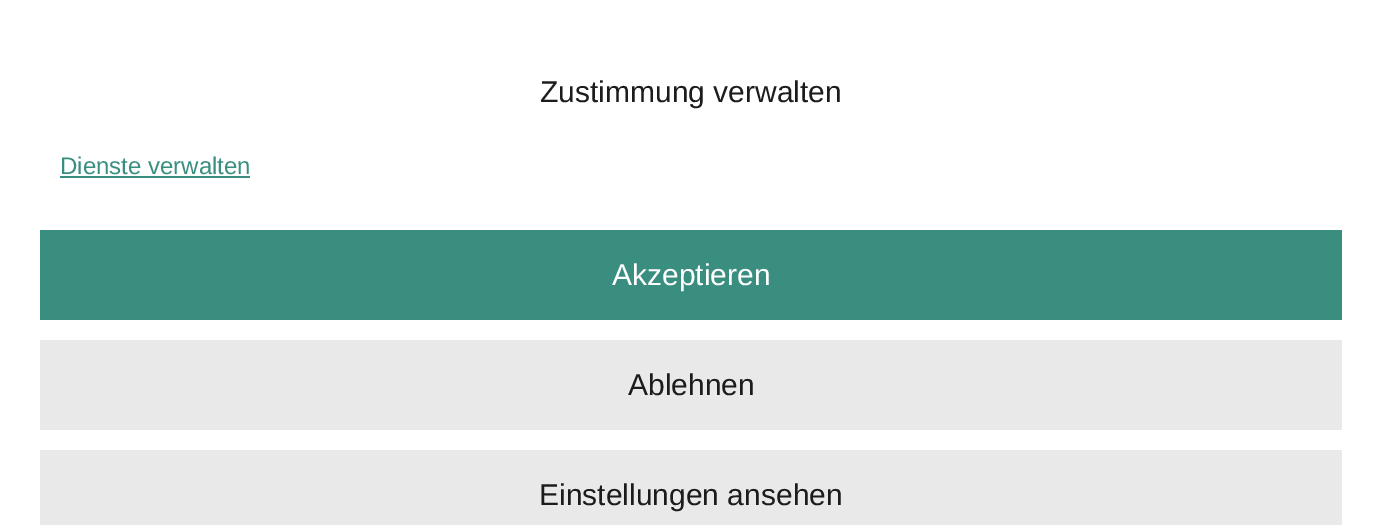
%!PS
<< /PageSize [1382 525] >> setpagedevice
/C { dup -16 bitshift 255 div exch dup -8 bitshift 255 and 255 div exch 255 and 255 div setrgbcolor } def
/F { [ exch dup neg 0 0 3 -1 roll 0 0 ] selectfont } def
/T { moveto show } def
/R { rectfill } def
0 525 translate 1 -1 scale
4 setmiterlimit
16#FFFFFF C
0 0 1382 525 R
/LiberationSans-Regular 30 F
16#1C1C1C C
(Zustimmung verwalten) 540 102 T
/LiberationSans-Regular 24 F
16#398E80 C
(Dienste verwalten) 60 174 T
60 176 190 2 R
40 230 1302 90 R
/LiberationSans-Regular 30 F
16#FFFFFF C
(Akzeptieren) 612 285 T
16#E9E9E9 C
40 340 1302 90 R
16#1C1C1C C
(Ablehnen) 628 395 T
16#E9E9E9 C
40 450 1302 75 R
16#1C1C1C C
(Einstellungen ansehen) 539 505 T
showpage
